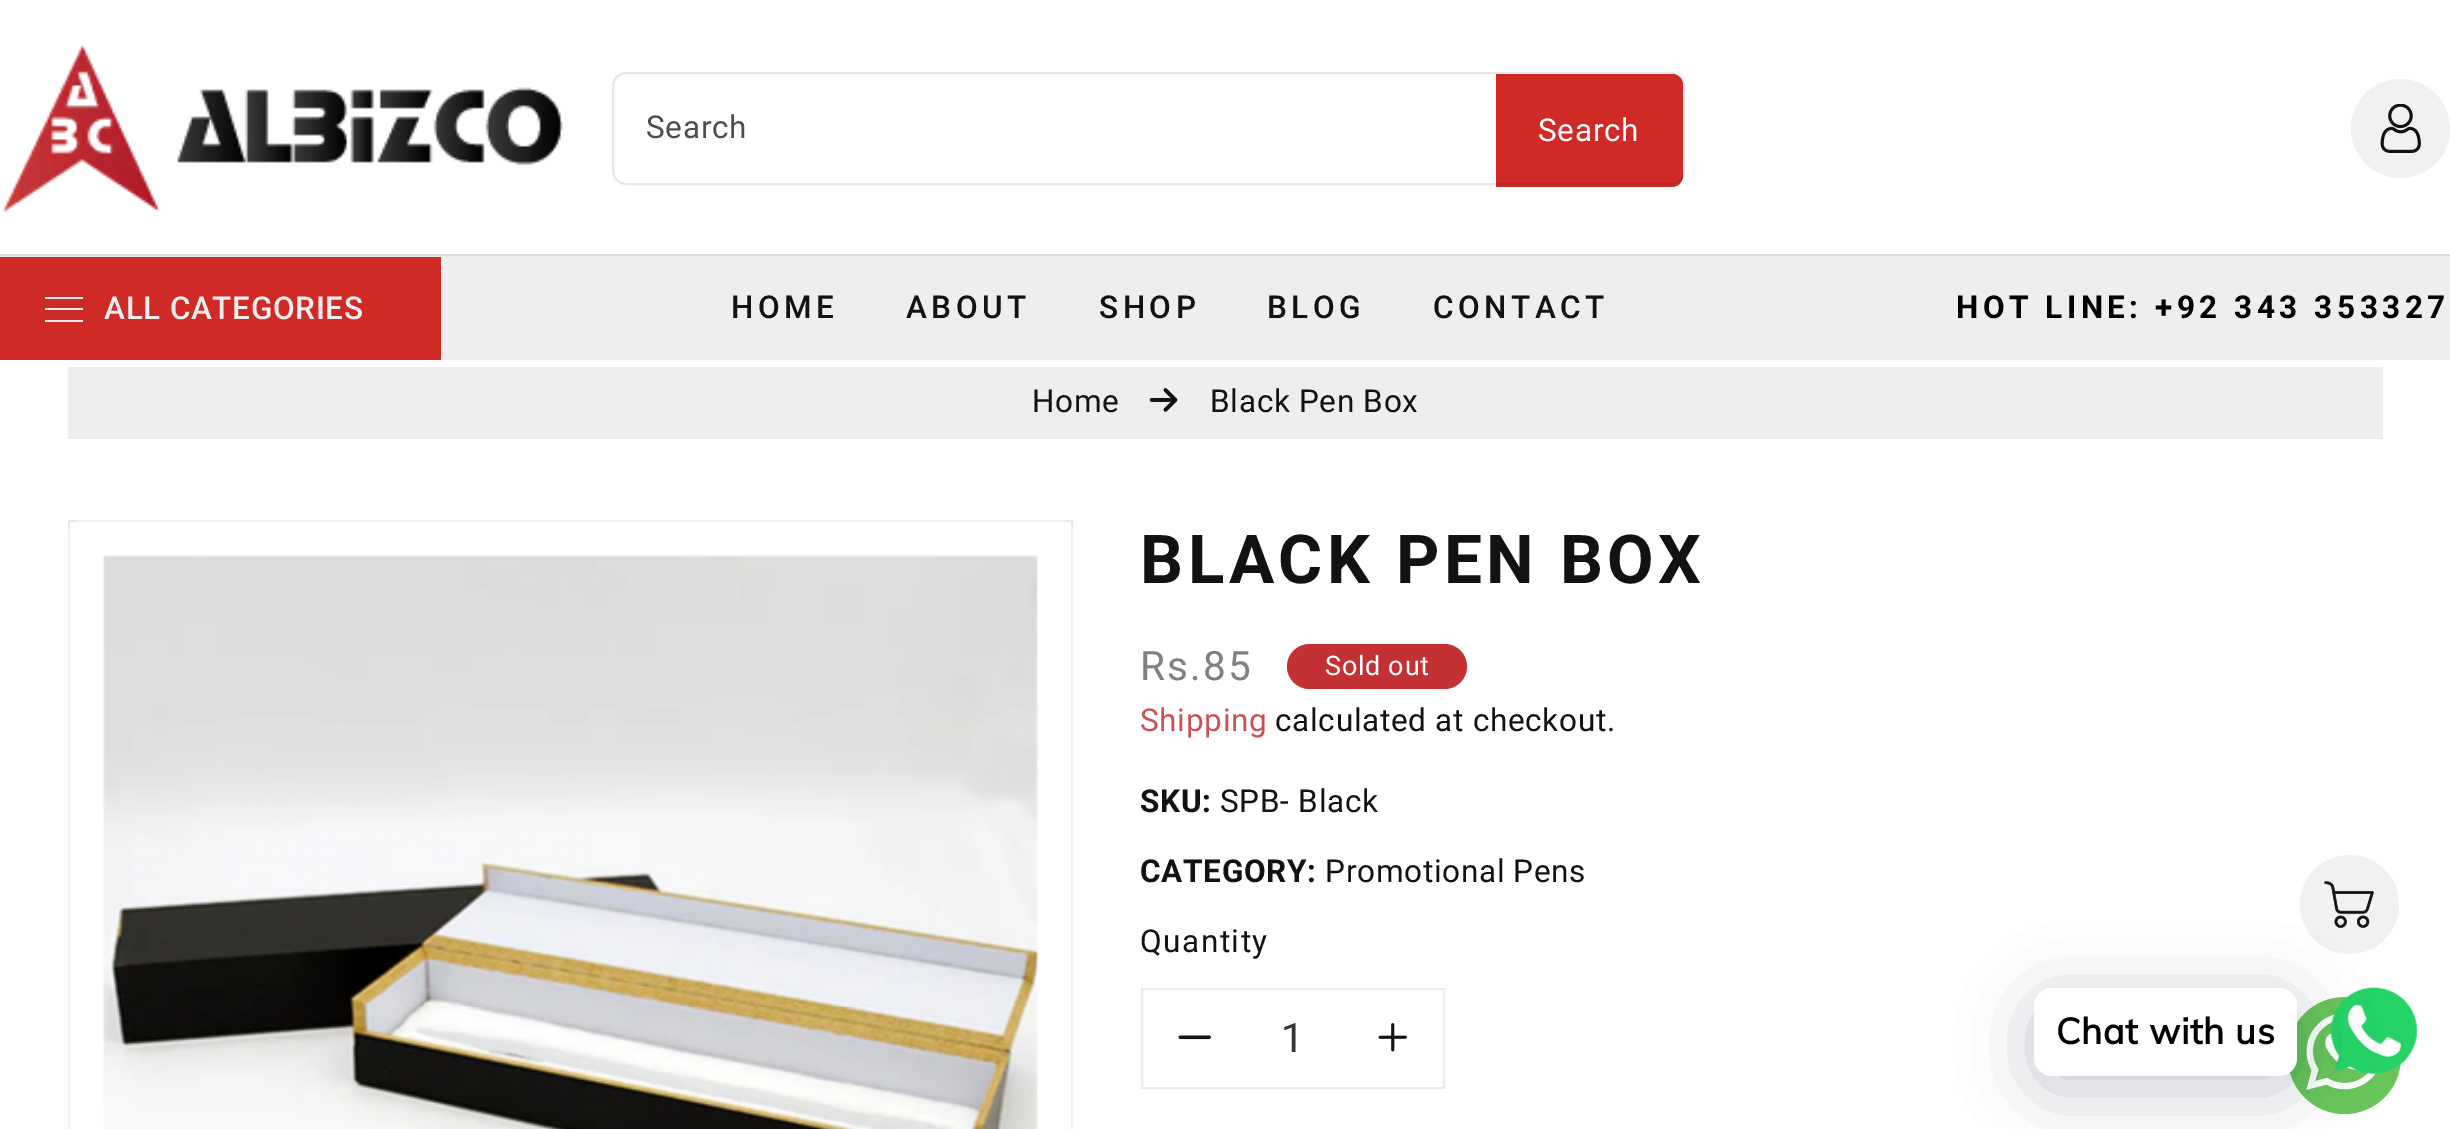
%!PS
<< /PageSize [2450 1129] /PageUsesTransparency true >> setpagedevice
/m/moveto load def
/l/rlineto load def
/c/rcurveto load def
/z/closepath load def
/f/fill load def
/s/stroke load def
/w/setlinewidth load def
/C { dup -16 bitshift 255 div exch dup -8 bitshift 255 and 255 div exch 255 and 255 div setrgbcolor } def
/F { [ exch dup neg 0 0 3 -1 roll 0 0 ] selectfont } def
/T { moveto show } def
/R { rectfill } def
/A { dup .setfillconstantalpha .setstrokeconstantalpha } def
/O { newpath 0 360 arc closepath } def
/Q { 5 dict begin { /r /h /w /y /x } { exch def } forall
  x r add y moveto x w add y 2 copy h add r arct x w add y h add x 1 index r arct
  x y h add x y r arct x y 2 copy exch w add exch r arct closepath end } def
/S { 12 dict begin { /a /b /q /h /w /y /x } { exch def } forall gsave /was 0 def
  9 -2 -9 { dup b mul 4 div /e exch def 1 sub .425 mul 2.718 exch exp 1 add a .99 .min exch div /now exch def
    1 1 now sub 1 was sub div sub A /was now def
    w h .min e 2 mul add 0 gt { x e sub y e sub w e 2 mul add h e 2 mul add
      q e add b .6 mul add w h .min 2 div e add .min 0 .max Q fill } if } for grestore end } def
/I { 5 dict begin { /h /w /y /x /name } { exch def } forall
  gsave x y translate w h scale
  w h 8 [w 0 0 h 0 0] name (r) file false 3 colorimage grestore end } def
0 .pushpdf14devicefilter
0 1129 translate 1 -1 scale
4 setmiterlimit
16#FFFFFF C
0 0 2450 1129 R
(1.rgb) 2 44 561 169 I
16#D02A27 C
1496 74 m 176 0 l 6 0 11 5 11 11 c 0 91 l 0 6 -5 11 -11 11 c -176 0 l z f
0.1 A
16#121212 C
2 w
613 73 1071 111 13 Q s
/Roboto-Regular 31.5 F
1 A
16#4D4D4D C
646 138 m .7 0 (Search) ashow
16#FFFFFF C
1538 141 m .7 0 (Search) ashow
16#F1F1F1 C
2400.5 128.5 49.5 O f
(2.rgb) 2380 104 41 49 I
2349.5 904.5 49.5 O f
(3.rgb) 2324 881 50 47 I
16#EEEEEF C
0 256 2450 104 R
16#DCDCDD C
0 254 2450 2 R
16#D02A27 C
0 257 441 103 R
16#EEEEEF C
45 297 38 2 R
45 308 38 2 R
45 320 38 2 R
/Roboto-Medium 31.5 F
104 319 m .7 0 (ALL CATEGORIES) ashow
16#121212 C
731 318 m 4.5 0 (HOME) ashow
906 318 m 4.5 0 (ABOUT) ashow
1099 318 m 4.5 0 (SHOP) ashow
1267 318 m 4.5 0 (BLOG) ashow
1433 318 m 4.5 0 (CONTACT) ashow
/Roboto-Bold 31.5 F
16#000000 C
1956 318 m 4.5 0 (HOT LINE: +92 343 353327) ashow
16#EEEEEF C
68 367 2315 70 R
16#ECECEC C
68 437 2315 2 R
/Roboto-Regular 31.5 F
16#121212 C
1032 412 m .7 0 (Home) ashow
(4.rgb) 1149 388 29 24 I
1210 412 m .7 0 (Black Pen Box) ashow
16#F4F4F4 C
68 520 1005 14 R
16#FFFFFF C
68 520 1005 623 14 Q f
0.05 A
16#121212 C
69 521 1003 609 rectstroke
1 A
16#FFFFFF C
70 522 1001 10 R
(5.rgb) 102 554 936 575 I
/Roboto-Bold 67.5 F
16#121212 C
1140 583 m 4.5 0 (BLACK PEN BOX) ashow
/Roboto-Regular 40.5 F
16#808080 C
1140 680 m 2.25 0 (Rs.85) ashow
16#C33135 C
1287 644 180 45 22.5 Q f
/Roboto-Regular 27 F
16#FFFFFF C
1325 675 m .7 0 (Sold out) ashow
/Roboto-Regular 31.5 F
16#CC5053 C
1140 731 m .7 0 (Shipping) ashow
16#121212 C
1275 731 m .7 0 (calculated at checkout.) ashow
/Roboto-Bold 31.5 F
1140 812 m .7 0 (SKU:) ashow
/Roboto-Regular 31.5 F
1220 812 m .7 0 (SPB- Black) ashow
/Roboto-Bold 31.5 F
1140 882 m .7 0 (CATEGORY:) ashow
/Roboto-Regular 31.5 F
1325 882 m .7 0 (Promotional Pens) ashow
1140 952 m 1.5 0 (Quantity) ashow
16#ECECEC C
1142 989 302 99 rectstroke
(6.rgb) 1178 1035 33 5 I
/Roboto-Regular 40.5 F
16#363636 C
(1) 1281 1052 T
(7.rgb) 1378 1023 29 29 I
16#69C459 C
2288 997 113 117 56.5 Q f
(9.rgb) 2306 1014 71 76 I
(8.rgb) 2330 986 88 88 I
16#00122E C
2034 1001 263 88 18 36 .24 S
16#FFFFFF C
2034 988 263 88 18 Q f
/Muli-Bold 36 F
16#000000 C
2056 1044 m .7 0 (Chat with us) ashow
.poppdf14devicefilter showpage
